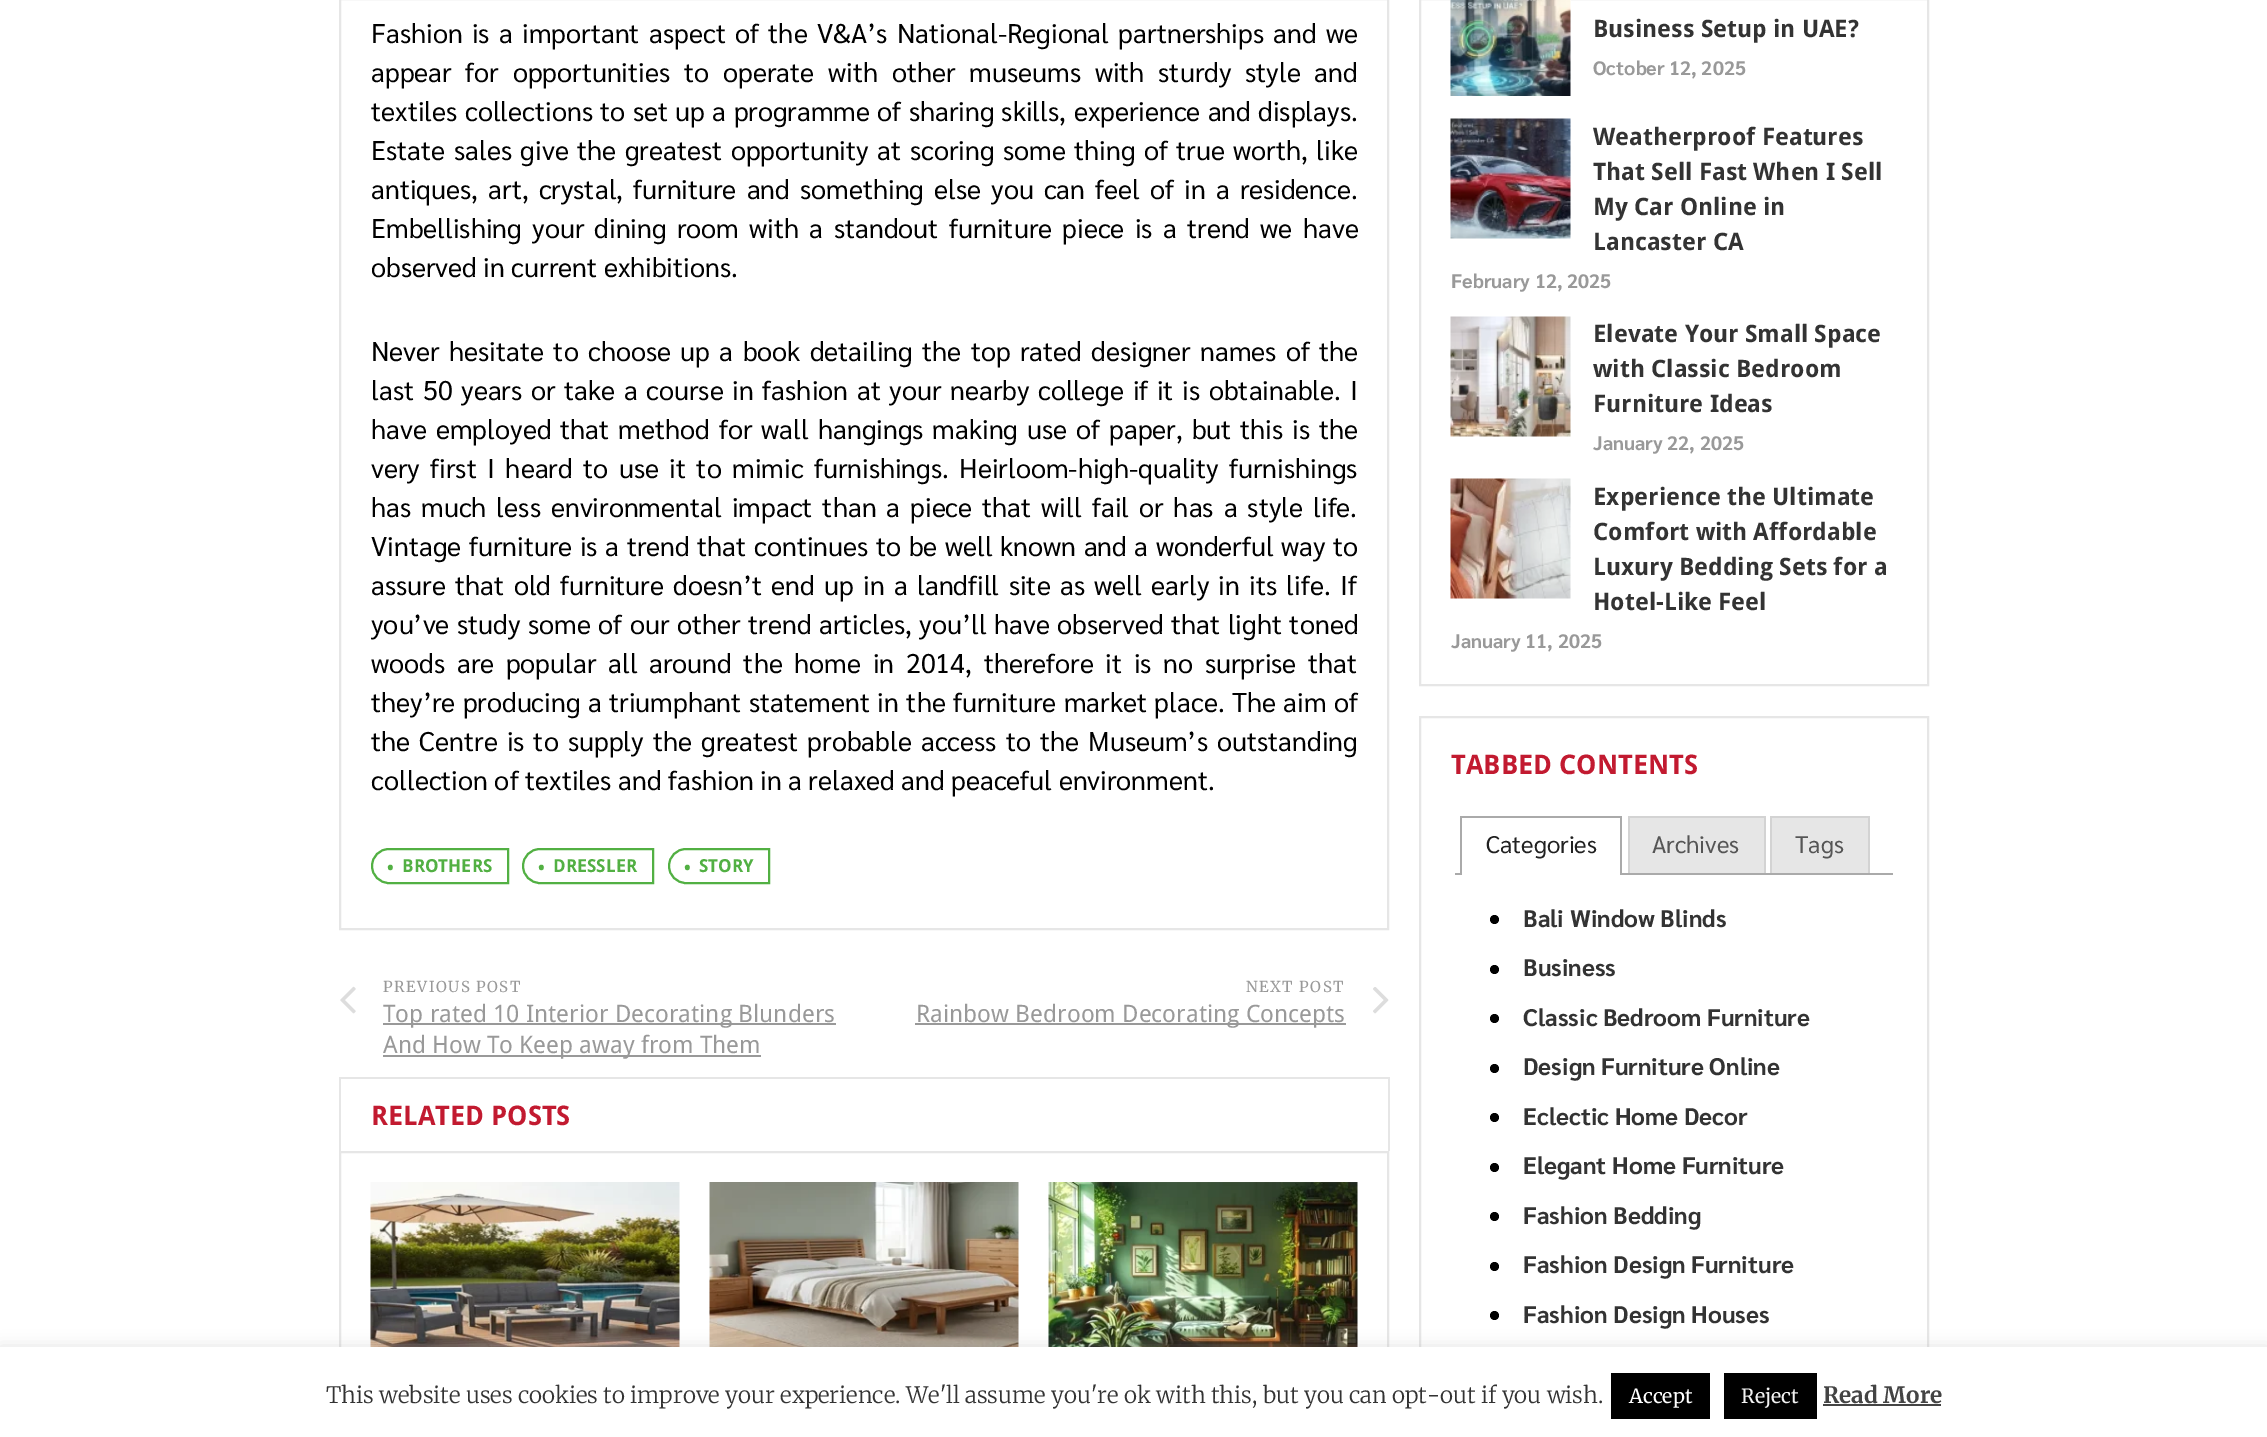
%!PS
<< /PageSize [2267 1437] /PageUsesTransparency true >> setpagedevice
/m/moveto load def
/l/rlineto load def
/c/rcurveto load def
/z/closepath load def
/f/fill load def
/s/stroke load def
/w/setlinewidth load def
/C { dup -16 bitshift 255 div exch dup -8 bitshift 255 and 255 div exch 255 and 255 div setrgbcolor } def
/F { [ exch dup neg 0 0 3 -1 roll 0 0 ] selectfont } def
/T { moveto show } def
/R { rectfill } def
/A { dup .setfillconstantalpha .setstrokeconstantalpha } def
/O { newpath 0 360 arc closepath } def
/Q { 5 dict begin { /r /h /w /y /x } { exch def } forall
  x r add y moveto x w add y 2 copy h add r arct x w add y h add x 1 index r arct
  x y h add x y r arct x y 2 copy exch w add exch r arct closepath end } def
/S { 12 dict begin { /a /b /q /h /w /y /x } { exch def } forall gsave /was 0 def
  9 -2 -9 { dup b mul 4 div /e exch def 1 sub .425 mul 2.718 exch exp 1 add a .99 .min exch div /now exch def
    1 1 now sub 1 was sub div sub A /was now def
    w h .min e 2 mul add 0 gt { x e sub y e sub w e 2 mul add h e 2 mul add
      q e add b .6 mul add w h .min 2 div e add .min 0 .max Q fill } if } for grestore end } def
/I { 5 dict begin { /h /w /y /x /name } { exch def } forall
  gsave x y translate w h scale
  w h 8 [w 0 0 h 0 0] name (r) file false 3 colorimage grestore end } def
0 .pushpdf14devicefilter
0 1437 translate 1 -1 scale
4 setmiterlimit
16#FFFFFF C
0 0 2267 1437 R
16#E6E6E6 C
2 w
340 -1 1048 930 rectstroke
/Sarabun-Regular 27 F
16#000000 C
371 43 m 2.75 0 32 (Fashion is a important aspect of the V&A’s National-Regional partnerships and we) widthshow
371 82 m 7.25 0 32 (appear for opportunities to operate with other museums with sturdy style and) widthshow
371 121 m .75 0 32 (textiles collections to set up a programme of sharing skills, experience and displays.) widthshow
371 160 m 1.9 0 32 (Estate sales give the greatest opportunity at scoring some thing of true worth, like) widthshow
371 199 m 3.5 0 32 (antiques, art, crystal, furniture and something else you can feel of in a residence.) widthshow
371 238 m 3.75 0 32 (Embellishing your dining room with a standout furniture piece is a trend we have) widthshow
(observed in current exhibitions.) 371 277 T
371 361 m 2.75 0 32 (Never hesitate to choose up a book detailing the top rated designer names of the) widthshow
371 400 m 2.1 0 32 (last 50 years or take a course in fashion at your nearby college if it is obtainable. I) widthshow
371 439 m 2.4 0 32 (have employed that method for wall hangings making use of paper, but this is the) widthshow
371 478 m 3.9 0 32 (very first I heard to use it to mimic furnishings. Heirloom-high-quality furnishings) widthshow
371 517 m 3.4 0 32 (has much less environmental impact than a piece that will fail or has a style life.) widthshow
371 556 m 1 0 32 (Vintage furniture is a trend that continues to be well known and a wonderful way to) widthshow
371 595 m 2.75 0 32 (assure that old furniture doesn’t end up in a landfill site as well early in its life. If) widthshow
371 634 m 1 0 32 (you’ve study some of our other trend articles, you’ll have observed that light toned) widthshow
371 673 m 5.1 0 32 (woods are popular all around the home in 2014, therefore it is no surprise that) widthshow
371 712 m .9 0 32 (they’re producing a triumphant statement in the furniture market place. The aim of) widthshow
371 751 m 2.5 0 32 (the Centre is to supply the greatest probable access to the Museum’s outstanding) widthshow
(collection of textiles and fashion in a relaxed and peaceful environment.) 371 790 T
16#52B043 C
389 849 m 119 0 l 0 34 l -119 0 l -9.5 0 -17 -7.5 -17 -17 c 0 -9.5 7.5 -17 17 -17 c z s
/DroidSans-Bold 18 F
(•) 387 874 T
(BROTHERS) 402 872 T
540 849 m 113 0 l 0 34 l -113 0 l -9.5 0 -17 -7.5 -17 -17 c 0 -9.5 7.5 -17 17 -17 c z s
(•) 538 874 T
(DRESSLER) 553 872 T
686 849 m 83 0 l 0 34 l -83 0 l -9.5 0 -17 -7.5 -17 -17 c 0 -9.5 7.5 -17 17 -17 c z s
(•) 684 874 T
(STORY) 699 872 T
(1.rgb) 340 986 16 28 I
/Merriweather-Regular 15 F
16#999999 C
383 992 m 1.5 0 (PREVIOUS POST) ashow
383 1023 453 2 R
/DroidSans-Regular 24 F
(Top rated 10 Interior Decorating Blunders) 383 1022 T
383 1055 378 2 R
(And How To Keep away from Them) 383 1053 T
/Merriweather-Regular 15 F
1246 992 m 1.5 0 (NEXT POST) ashow
915 1023 431 2 R
/DroidSans-Regular 24 F
(Rainbow Bedroom Decorating Concepts) 916 1022 T
(2.rgb) 1373 987 16 27 I
16#E6E6E6 C
339 1077 1050 2 R
1388 1077 2 74 R
339 1077 2 74 R
/DroidSans-Bold 27 F
16#C21A30 C
(RELATED POSTS) 371 1125 T
16#E6E6E6 C
340 1152 1048 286 rectstroke
(3.rgb) 370 1182 310 165 I
(4.rgb) 709 1182 310 165 I
(5.rgb) 1048 1182 310 165 I
1420 -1 508 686 rectstroke
(6.rgb) 1450 0 121 96 I
/DroidSans-Bold 24 F
16#333333 C
(Business Setup in UAE?) 1593 37 T
/Sarabun-Bold 19.5 F
16#999999 C
(October 12, 2025) 1593 75 T
(7.rgb) 1450 118 121 121 I
/DroidSans-Bold 24 F
16#333333 C
(Weatherproof Features) 1593 145 T
(That Sell Fast When I Sell) 1593 180 T
(My Car Online in) 1593 215 T
(Lancaster CA) 1593 250 T
/Sarabun-Bold 19.5 F
16#999999 C
(February 12, 2025) 1451 288 T
(8.rgb) 1450 316 121 121 I
/DroidSans-Bold 24 F
16#333333 C
(Elevate Your Small Space) 1593 342 T
(with Classic Bedroom) 1593 377 T
(Furniture Ideas) 1593 412 T
/Sarabun-Bold 19.5 F
16#999999 C
(January 22, 2025) 1593 450 T
(9.rgb) 1450 478 121 121 I
/DroidSans-Bold 24 F
16#333333 C
(Experience the Ultimate) 1593 505 T
(Comfort with Affordable) 1593 540 T
(Luxury Bedding Sets for a) 1593 575 T
(Hotel-Like Feel) 1593 610 T
/Sarabun-Bold 19.5 F
16#999999 C
(January 11, 2025) 1451 648 T
16#E6E6E6 C
1420 717 508 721 rectstroke
/DroidSans-Bold 27 F
16#C21A30 C
(TABBED CONTENTS) 1451 774 T
16#AAAAAA C
1455 873 438 2 R
16#FFFFFF C
1462 873 158 2 R
16#AAAAAA C
1460 816 162 2 R
1620 816 2 59 R
1460 816 2 59 R
/Sarabun-Regular 24 F
16#212121 C
(Categories) 1486 853 T
16#E6E6E6 C
1630 818 134 55 R
16#D3D3D3 C
1628 816 138 2 R
1764 816 2 57 R
1628 816 2 57 R
16#555555 C
(Archives) 1652 853 T
16#E6E6E6 C
1772 818 96 55 R
16#D3D3D3 C
1770 816 99 2 R
1868 816 2 57 R
1770 816 2 57 R
16#555555 C
(Tags) 1795 853 T
16#000000 C
1494.5 919.5 4.5 O f
/Sarabun-Bold 24 F
16#333333 C
(Bali Window Blinds) 1523 927 T
16#000000 C
1494.5 969.5 4.5 O f
16#333333 C
(Business) 1523 976 T
16#000000 C
1494.5 1018.5 4.5 O f
16#333333 C
(Classic Bedroom Furniture) 1523 1026 T
16#000000 C
1494.5 1068.5 4.5 O f
16#333333 C
(Design Furniture Online) 1523 1075 T
16#000000 C
1494.5 1117.5 4.5 O f
16#333333 C
(Eclectic Home Decor) 1523 1125 T
16#000000 C
1494.5 1167.5 4.5 O f
16#333333 C
(Elegant Home Furniture) 1523 1174 T
16#000000 C
1494.5 1216.5 4.5 O f
16#333333 C
(Fashion Bedding) 1523 1224 T
16#000000 C
1494.5 1266.5 4.5 O f
16#333333 C
(Fashion Design Furniture) 1523 1273 T
16#000000 C
1494.5 1315.5 4.5 O f
16#333333 C
(Fashion Design Houses) 1523 1323 T
16#ACABAB C
0 1346 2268 90 0 7.5 .3 S
16#FFFFFF C
0 1347 2267 90 R
/Merriweather-Light 22.5 F
16#333333 C
(This website uses cookies to improve your experience. We'll assume you're ok with this, but you can opt-out if you wish.) 326 1403 T
16#000000 C
1611 1373 99 46 R
/Merriweather-Regular 19.5 F
16#FFFFFF C
(Accept) 1629 1403 T
16#000000 C
1724 1373 93 46 R
16#F2F2F2 C
(Reject) 1741 1403 T
/Merriweather-Bold 22.5 F
16#444444 C
(Read More) 1823 1403 T
1823 1404 118 2 R
.poppdf14devicefilter showpage
